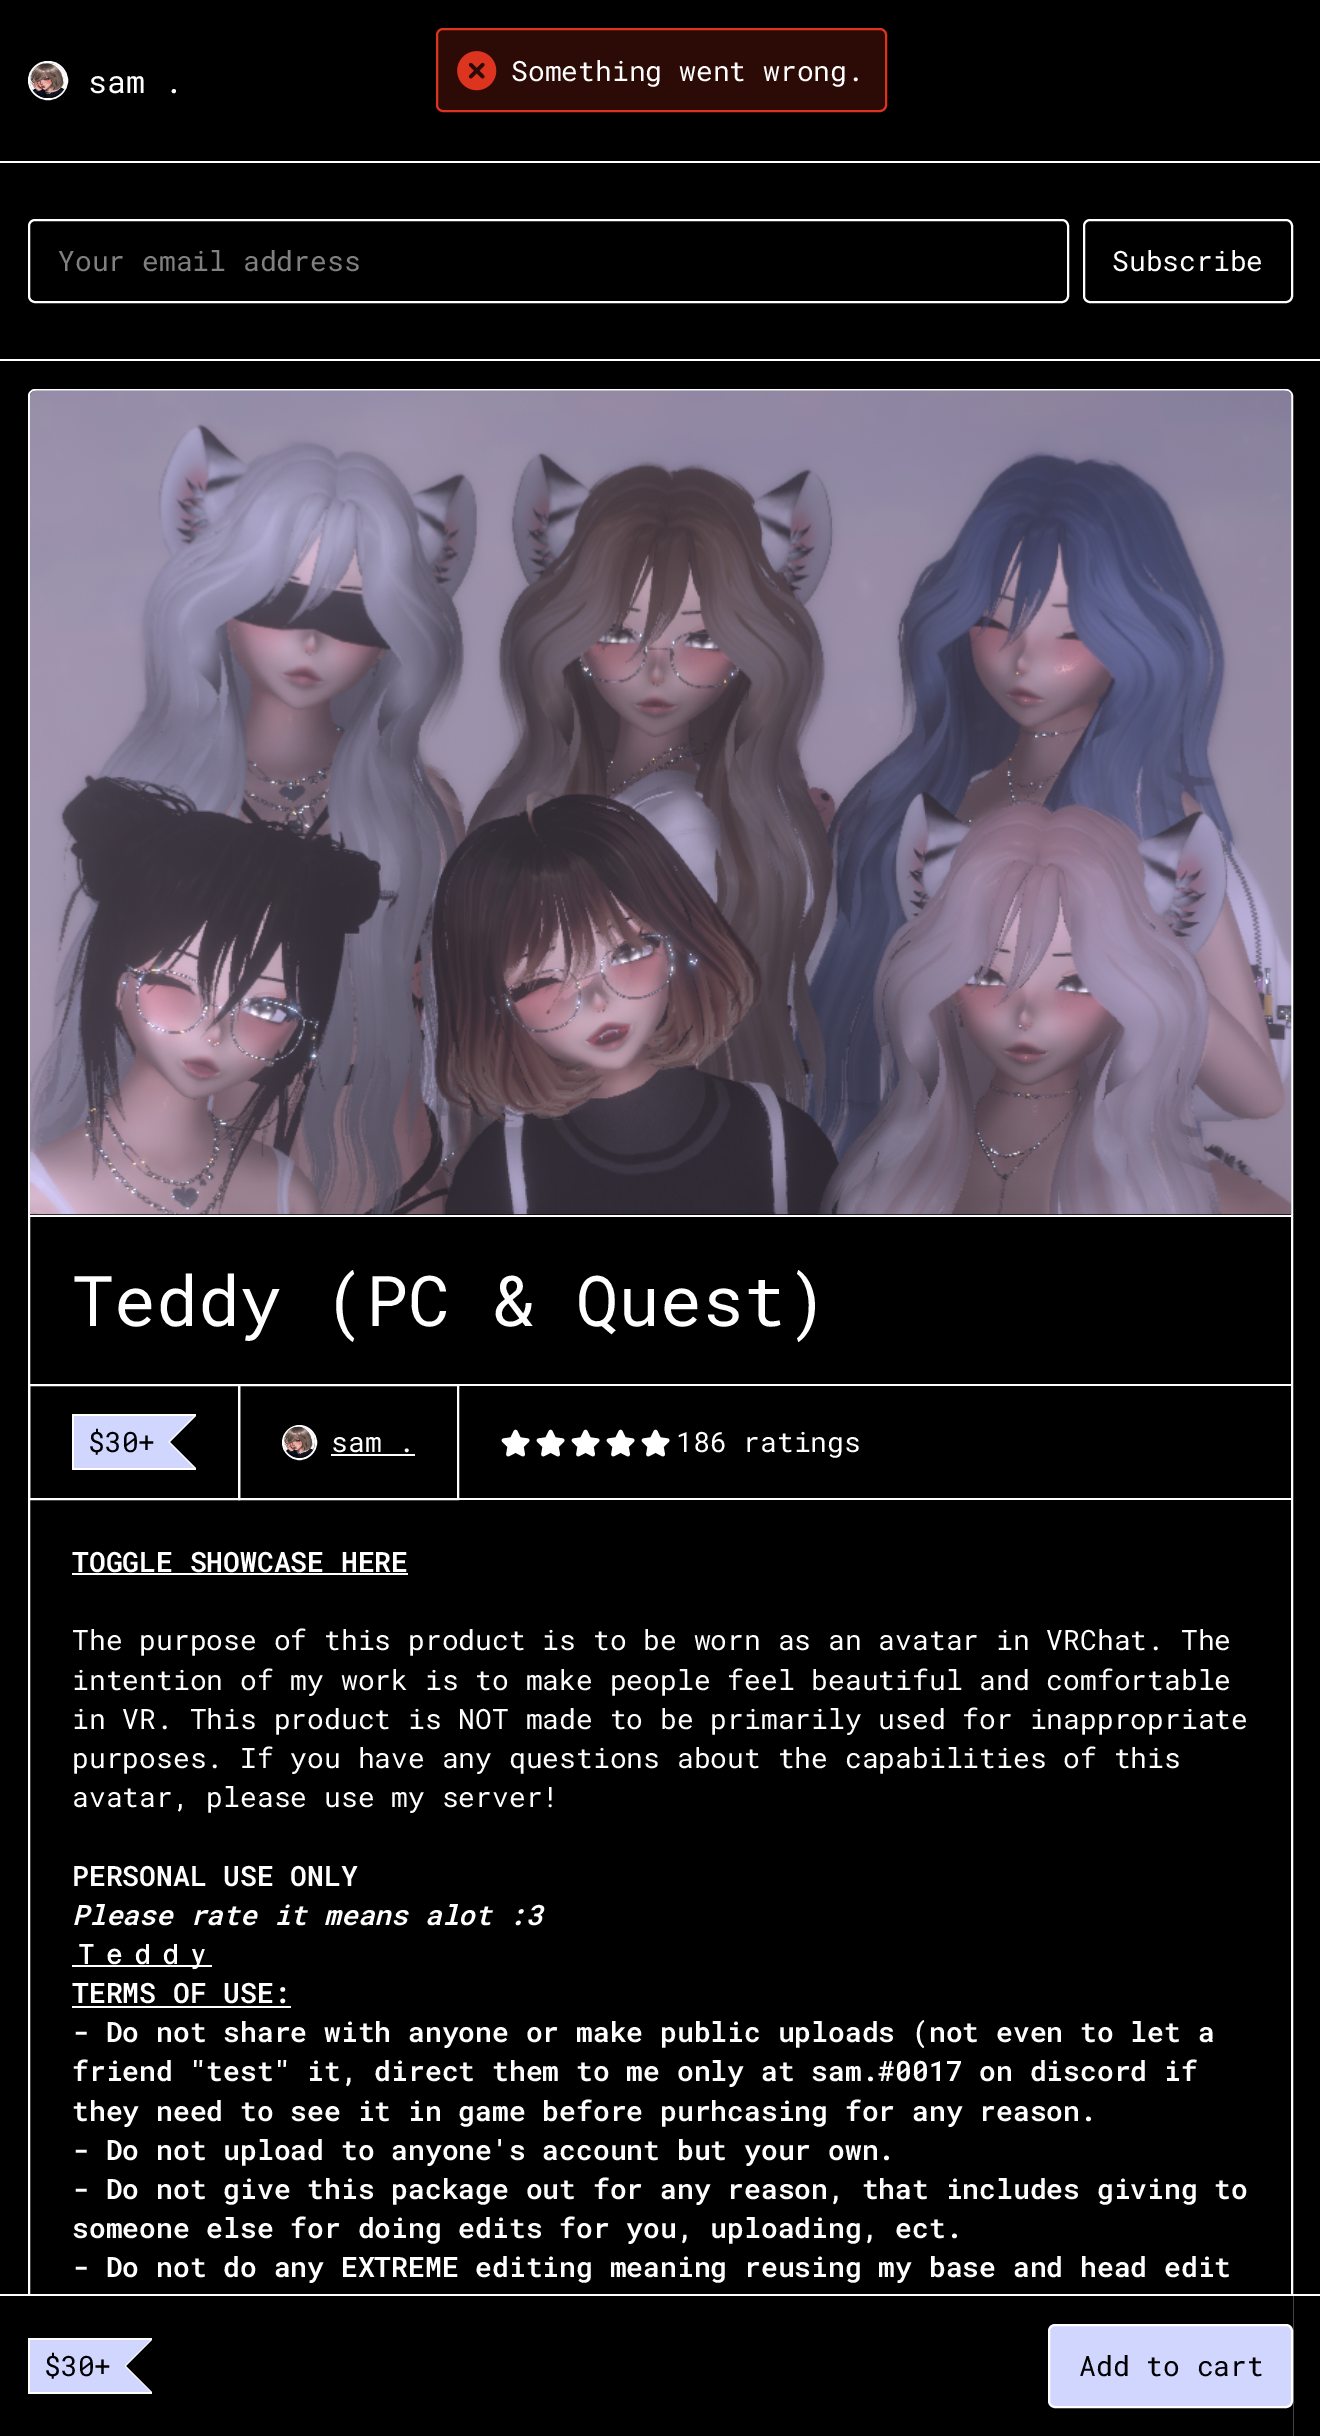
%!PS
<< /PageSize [1320 2436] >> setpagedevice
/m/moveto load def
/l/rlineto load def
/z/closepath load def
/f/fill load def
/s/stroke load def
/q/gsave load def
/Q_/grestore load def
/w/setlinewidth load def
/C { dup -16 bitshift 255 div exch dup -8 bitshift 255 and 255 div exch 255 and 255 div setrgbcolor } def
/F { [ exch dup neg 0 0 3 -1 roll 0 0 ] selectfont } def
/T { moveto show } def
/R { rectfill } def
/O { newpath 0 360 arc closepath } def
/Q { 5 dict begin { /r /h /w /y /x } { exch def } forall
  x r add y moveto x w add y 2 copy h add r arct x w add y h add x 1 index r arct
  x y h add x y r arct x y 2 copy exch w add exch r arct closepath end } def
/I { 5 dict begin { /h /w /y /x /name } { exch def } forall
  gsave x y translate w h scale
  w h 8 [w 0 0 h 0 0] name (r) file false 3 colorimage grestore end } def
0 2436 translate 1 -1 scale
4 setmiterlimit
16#000000 C
0 0 1320 2436 R
16#2C0A06 C
437 29 449 82 6 Q q f Q_
16#DC341E C
2 w
s
(1.rgb) 457 51 40 40 I
/RobotoMono-Regular 28 F
16#FFFFFF C
(Something went wrong.) 511 81 T
0 161 1320 2 R
29 62 38 37 18.5 Q s
(2.rgb) 30 63 36 35 I
/RobotoMono-Regular 31.5 F
(sam .) 88 93 T
0 359 1320 2 R
29 220 1039 82 6 Q s
/RobotoMono-Regular 28 F
16#808080 C
(Your email address) 58 271 T
16#FFFFFF C
1084 220 208 82 6 Q s
(Subscribe) 1112 271 T
29 390 1263 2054 6 Q s
30 1215 1262 2 R
(3.rgb) 29 390 1263 825 I
/RobotoMono-Regular 70 F
(Teddy \(PC & Quest\)) 72 1326 T
459 1384 833 2 R
29 1385 210 114 rectstroke
72 1414 124 2 R
72 1468 124 2 R
72 1414 2 56 R
16#D1D6FF C
74 1416 94 52 R
16#FFFFFF C
168 1416 m 28 0 l -26 26 l z 196 1468 m -28 0 l 2 -26 l z f
168 1440 2 4 R
16#D1D6FF C
166 1416 m 28 0 l -26 26 l z 194 1468 m -28 0 l 2 -26 l z f
/RobotoMono-Regular 28 F
16#000000 C
($30+) 88 1452 T
16#FFFFFF C
239 1385 219 114 rectstroke
299.5 1442.5 16.5 O s
(4.rgb) 284 1426 31 32 I
(sam .) 331 1452 T
331 1454 84 2 R
(5.rgb) 501 1429 29 28 I
(5.rgb) 536 1429 29 28 I
(5.rgb) 571 1429 29 28 I
(5.rgb) 606 1429 29 28 I
(5.rgb) 641 1429 29 28 I
(186 ratings) 676 1452 T
459 1498 833 2 R
/RobotoMono-SemiBold 28 F
(TOGGLE SHOWCASE HERE) 72 1572 T
72 1573 336 2 R
/RobotoMono-Regular 28 F
(The purpose of this product is to be worn as an avatar in VRChat. The) 72 1650 T
(intention of my work is to make people feel beautiful and comfortable) 72 1690 T
(in VR. This product is NOT made to be primarily used for inappropriate) 72 1729 T
(purposes. If you have any questions about the capabilities of this) 72 1768 T
(avatar, please use my server!) 72 1807 T
/RobotoMono-SemiBold 28 F
(PERSONAL USE ONLY) 72 1886 T
/RobotoMono-SemiBoldItalic 28 F
(Please rate it means alot :3) 72 1925 T
72 1965 140 2 R
/WenQuanYiZenHei-Bold 28 F
(Ｔｅｄｄｙ) 72 1964 T
/RobotoMono-SemiBold 28 F
(TERMS OF USE:) 72 2003 T
72 2006 219 2 R
(- Do not share with anyone or make public uploads \(not even to let a) 72 2042 T
(friend "test" it, direct them to me only at sam.#0017 on discord if) 72 2081 T
(they need to see it in game before purhcasing for any reason.) 72 2121 T
(- Do not upload to anyone's account but your own.) 72 2160 T
(- Do not give this package out for any reason, that includes giving to) 72 2199 T
(someone else for doing edits for you, uploading, ect.) 72 2238 T
(- Do not do any EXTREME editing meaning reusing my base and head edit) 72 2277 T
0 2294 1320 2 R
16#000000 C
28 2296 1265 140 R
16#FFFFFF C
28 2338 124 2 R
28 2392 124 2 R
28 2338 2 56 R
16#D1D6FF C
30 2340 93 52 R
16#FFFFFF C
124 2340 m 28 0 l -26 26 l z 152 2392 m -28 0 l 2 -26 l z f
125 2364 1 4 R
16#D1D6FF C
122.5 2340 m 28 0 l -26.5 26 l z 150.5 2392 m -28 0 l 1.5 -26 l z f
123 2349 2 34 R
/RobotoMono-Regular 28 F
16#000000 C
($30+) 44 2376 T
16#D1D6FF C
1049 2325 243 82 6 Q q f Q_
16#FFFFFF C
s
16#000000 C
(Add to cart) 1079 2376 T
showpage
